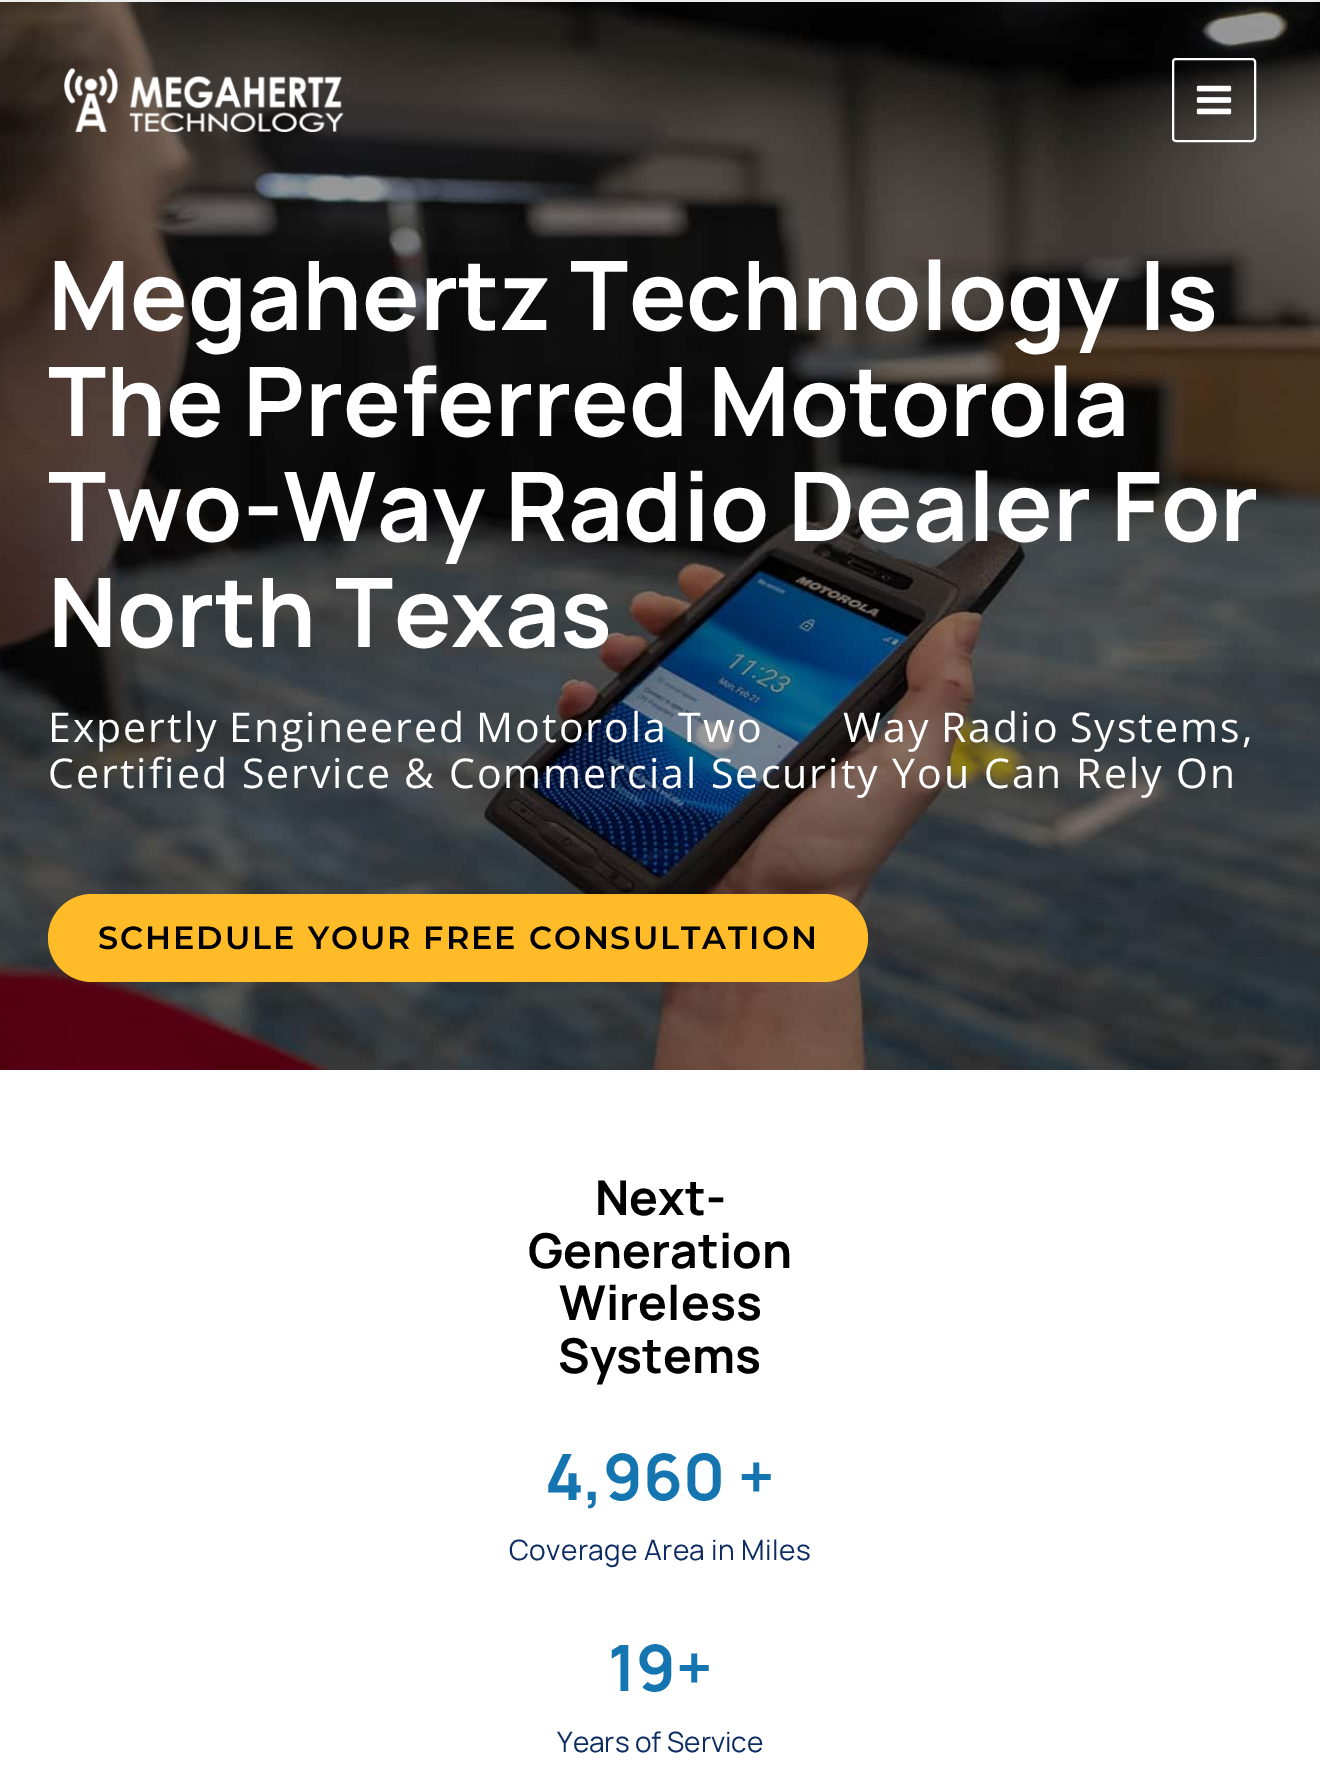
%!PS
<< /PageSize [1320 1765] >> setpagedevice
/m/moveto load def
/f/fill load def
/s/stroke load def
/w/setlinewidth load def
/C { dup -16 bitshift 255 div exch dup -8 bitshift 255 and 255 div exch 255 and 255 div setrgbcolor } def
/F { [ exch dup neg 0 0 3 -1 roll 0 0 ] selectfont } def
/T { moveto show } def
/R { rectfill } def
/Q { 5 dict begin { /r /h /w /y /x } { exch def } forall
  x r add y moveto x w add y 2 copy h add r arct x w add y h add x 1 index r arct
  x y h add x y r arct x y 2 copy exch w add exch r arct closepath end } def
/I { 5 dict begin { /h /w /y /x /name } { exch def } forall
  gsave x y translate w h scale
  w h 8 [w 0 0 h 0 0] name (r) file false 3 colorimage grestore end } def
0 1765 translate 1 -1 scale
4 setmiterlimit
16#EDEEEF C
0 0 1320 1765 R
(3.rgb) 0 2 1320 1068 I
(1.rgb) 64 68 280 64 I
16#FFFFFF C
2 w
1173 59 82 82 3 Q s
(2.rgb) 1196 85 36 30 I
/Manrope-Bold 96 F
(Megahertz Technology Is) 48 330 T
(The Preferred Motorola) 48 436 T
(Two-Way Radio Dealer For) 48 541 T
(North Texas) 48 647 T
/OpenSans-Regular 41.05 F
48 742 m -2.25 0 32 2 0 (Expertly Engineered Motorola Two‑Way Radio Systems,) awidthshow
48 788 m 2 0 (Certified Service & Commercial Security You Can Rely On) ashow
16#FFBC28 C
48 894 820 88 44 Q f
/Montserrat-SemiBold 32 F
16#000000 C
98 949 m 2 0 (SCHEDULE YOUR FREE CONSULTATION) ashow
16#FFFFFF C
0 1070 1320 695 R
/Manrope-Bold 48 F
16#000000 C
(Next-) 595 1215 T
(Generation) 528 1268 T
(Wireless) 559 1320 T
(Systems) 558 1373 T
/Manrope-Bold 64 F
16#1575B1 C
(4,960 +) 545 1500 T
/Manrope-Regular 28 F
16#0D2D62 C
509 1560 m .4 0 (Coverage Area in Miles) ashow
/Manrope-Bold 64 F
16#1575B1 C
(19+) 608 1691 T
/Manrope-Regular 28 F
16#0D2D62 C
(Years of Service) 557 1752 T
showpage
